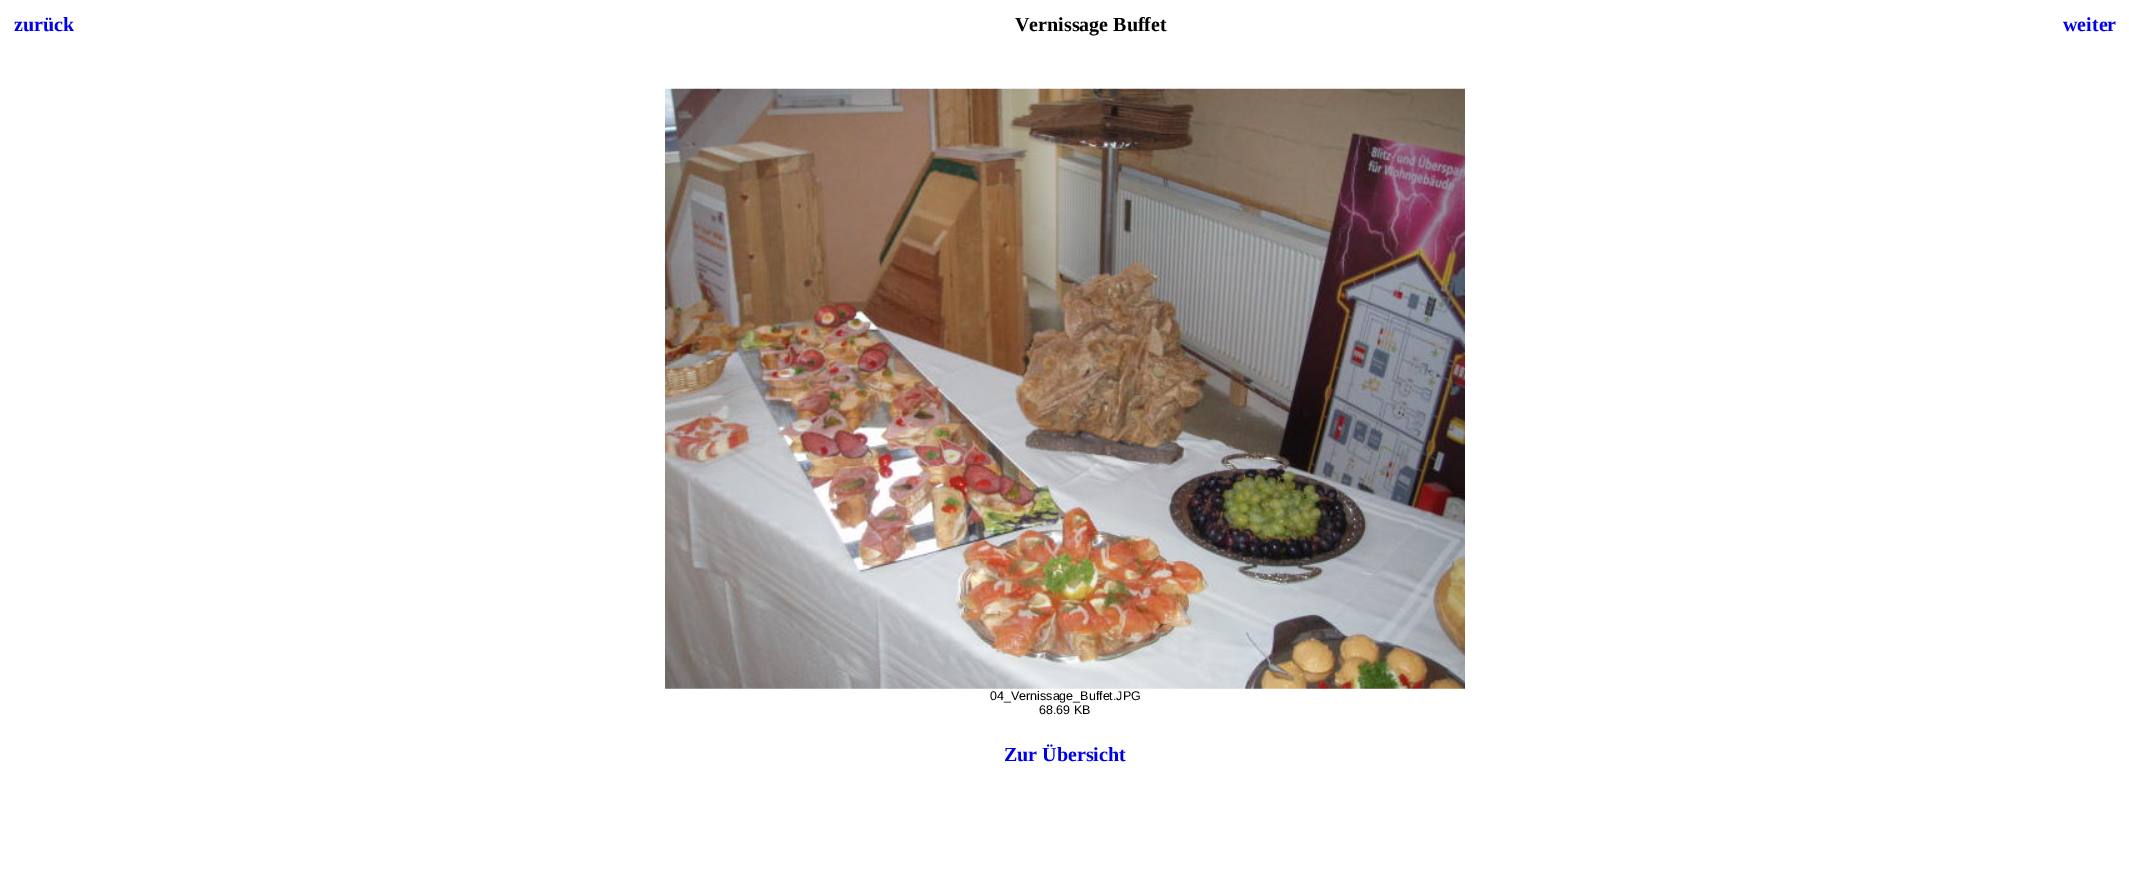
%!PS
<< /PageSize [2129 883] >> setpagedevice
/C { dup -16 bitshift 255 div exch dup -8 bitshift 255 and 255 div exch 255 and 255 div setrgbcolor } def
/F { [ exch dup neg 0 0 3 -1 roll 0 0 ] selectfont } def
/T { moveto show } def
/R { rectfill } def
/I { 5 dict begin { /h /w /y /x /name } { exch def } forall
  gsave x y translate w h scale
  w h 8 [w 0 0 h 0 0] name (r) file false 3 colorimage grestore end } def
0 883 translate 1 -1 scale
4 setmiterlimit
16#FFFFFF C
0 0 2129 883 R
/LiberationSerif-Bold 20 F
16#0000EE C
(zurück) 14 31 T
16#000000 C
(Vernissage Buffet) 1015 31 T
16#0000EE C
(weiter) 2063 31 T
(1.rgb) 665 88 800 601 I
/LiberationSans-Regular 12.5 F
16#000000 C
(04_Vernissage_Buffet.JPG) 990 700 T
(68.69 KB) 1039 714 T
/LiberationSerif-Bold 20 F
16#0000EE C
(Zur Übersicht) 1004 761 T
showpage
